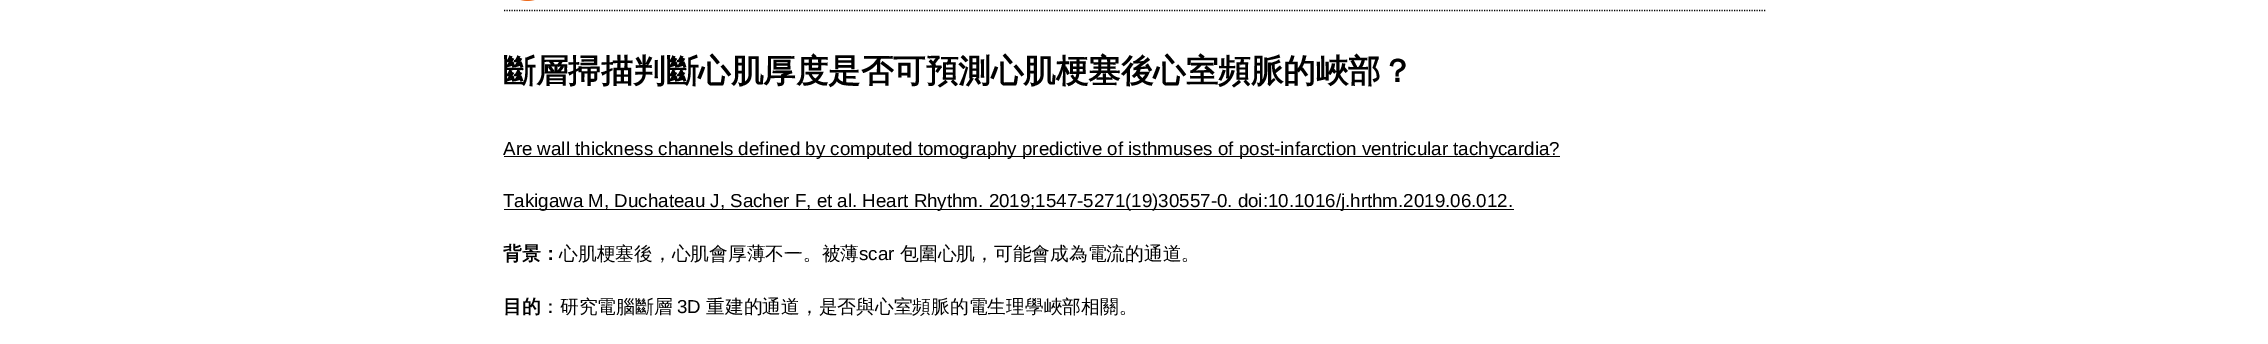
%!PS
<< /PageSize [2268 344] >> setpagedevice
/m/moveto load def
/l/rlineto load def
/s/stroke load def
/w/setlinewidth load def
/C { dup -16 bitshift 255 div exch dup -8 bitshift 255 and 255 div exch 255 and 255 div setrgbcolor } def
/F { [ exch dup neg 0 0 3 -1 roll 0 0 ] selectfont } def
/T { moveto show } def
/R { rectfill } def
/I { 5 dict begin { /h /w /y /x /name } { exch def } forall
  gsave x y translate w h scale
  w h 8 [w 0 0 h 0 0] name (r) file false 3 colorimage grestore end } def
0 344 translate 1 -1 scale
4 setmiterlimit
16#FFFFFF C
0 0 2268 344 R
16#000000 C
1.2 w
[1.25 1.25] 0 setdash
504 10.5 m 1262 0 l s
(1.rgb) 520 0 15 1 I
/WenQuanYiZenHei-Bold 32.5 F
(斷層掃描判斷心肌厚度是否可預測心肌梗塞後心室頻脈的峽部？) 503 82 T
504 156 1056 1 R
/LiberationSans-Regular 18.75 F
(Are wall thickness channels defined by computed tomography predictive of isthmuses of post-infarction ventricular tachycardia?) 503 155 T
504 209 1010 1 R
(Takigawa M, Duchateau J, Sacher F, et al. Heart Rhythm. 2019;1547-5271\(19\)30557-0. doi:10.1016/j.hrthm.2019.06.012.) 503 207 T
/WenQuanYiZenHei-Bold 18.75 F
(背景：) 503 260 T
/WenQuanYiZenHei-Medium 18.75 F
(心肌梗塞後，心肌會厚薄不一。被薄) 559 260 T
/LiberationSans-Regular 18.75 F
(scar) 859 260 T
/WenQuanYiZenHei-Medium 18.75 F
(包圍心肌，可能會成為電流的通道。) 900 260 T
/WenQuanYiZenHei-Bold 18.75 F
(目的) 503 313 T
/WenQuanYiZenHei-Medium 18.75 F
(：研究電腦斷層) 541 313 T
/LiberationSans-Regular 18.75 F
(3D) 677 313 T
/WenQuanYiZenHei-Medium 18.75 F
(重建的通道，是否與心室頻脈的電生理學峽部相關。) 706 313 T
showpage
